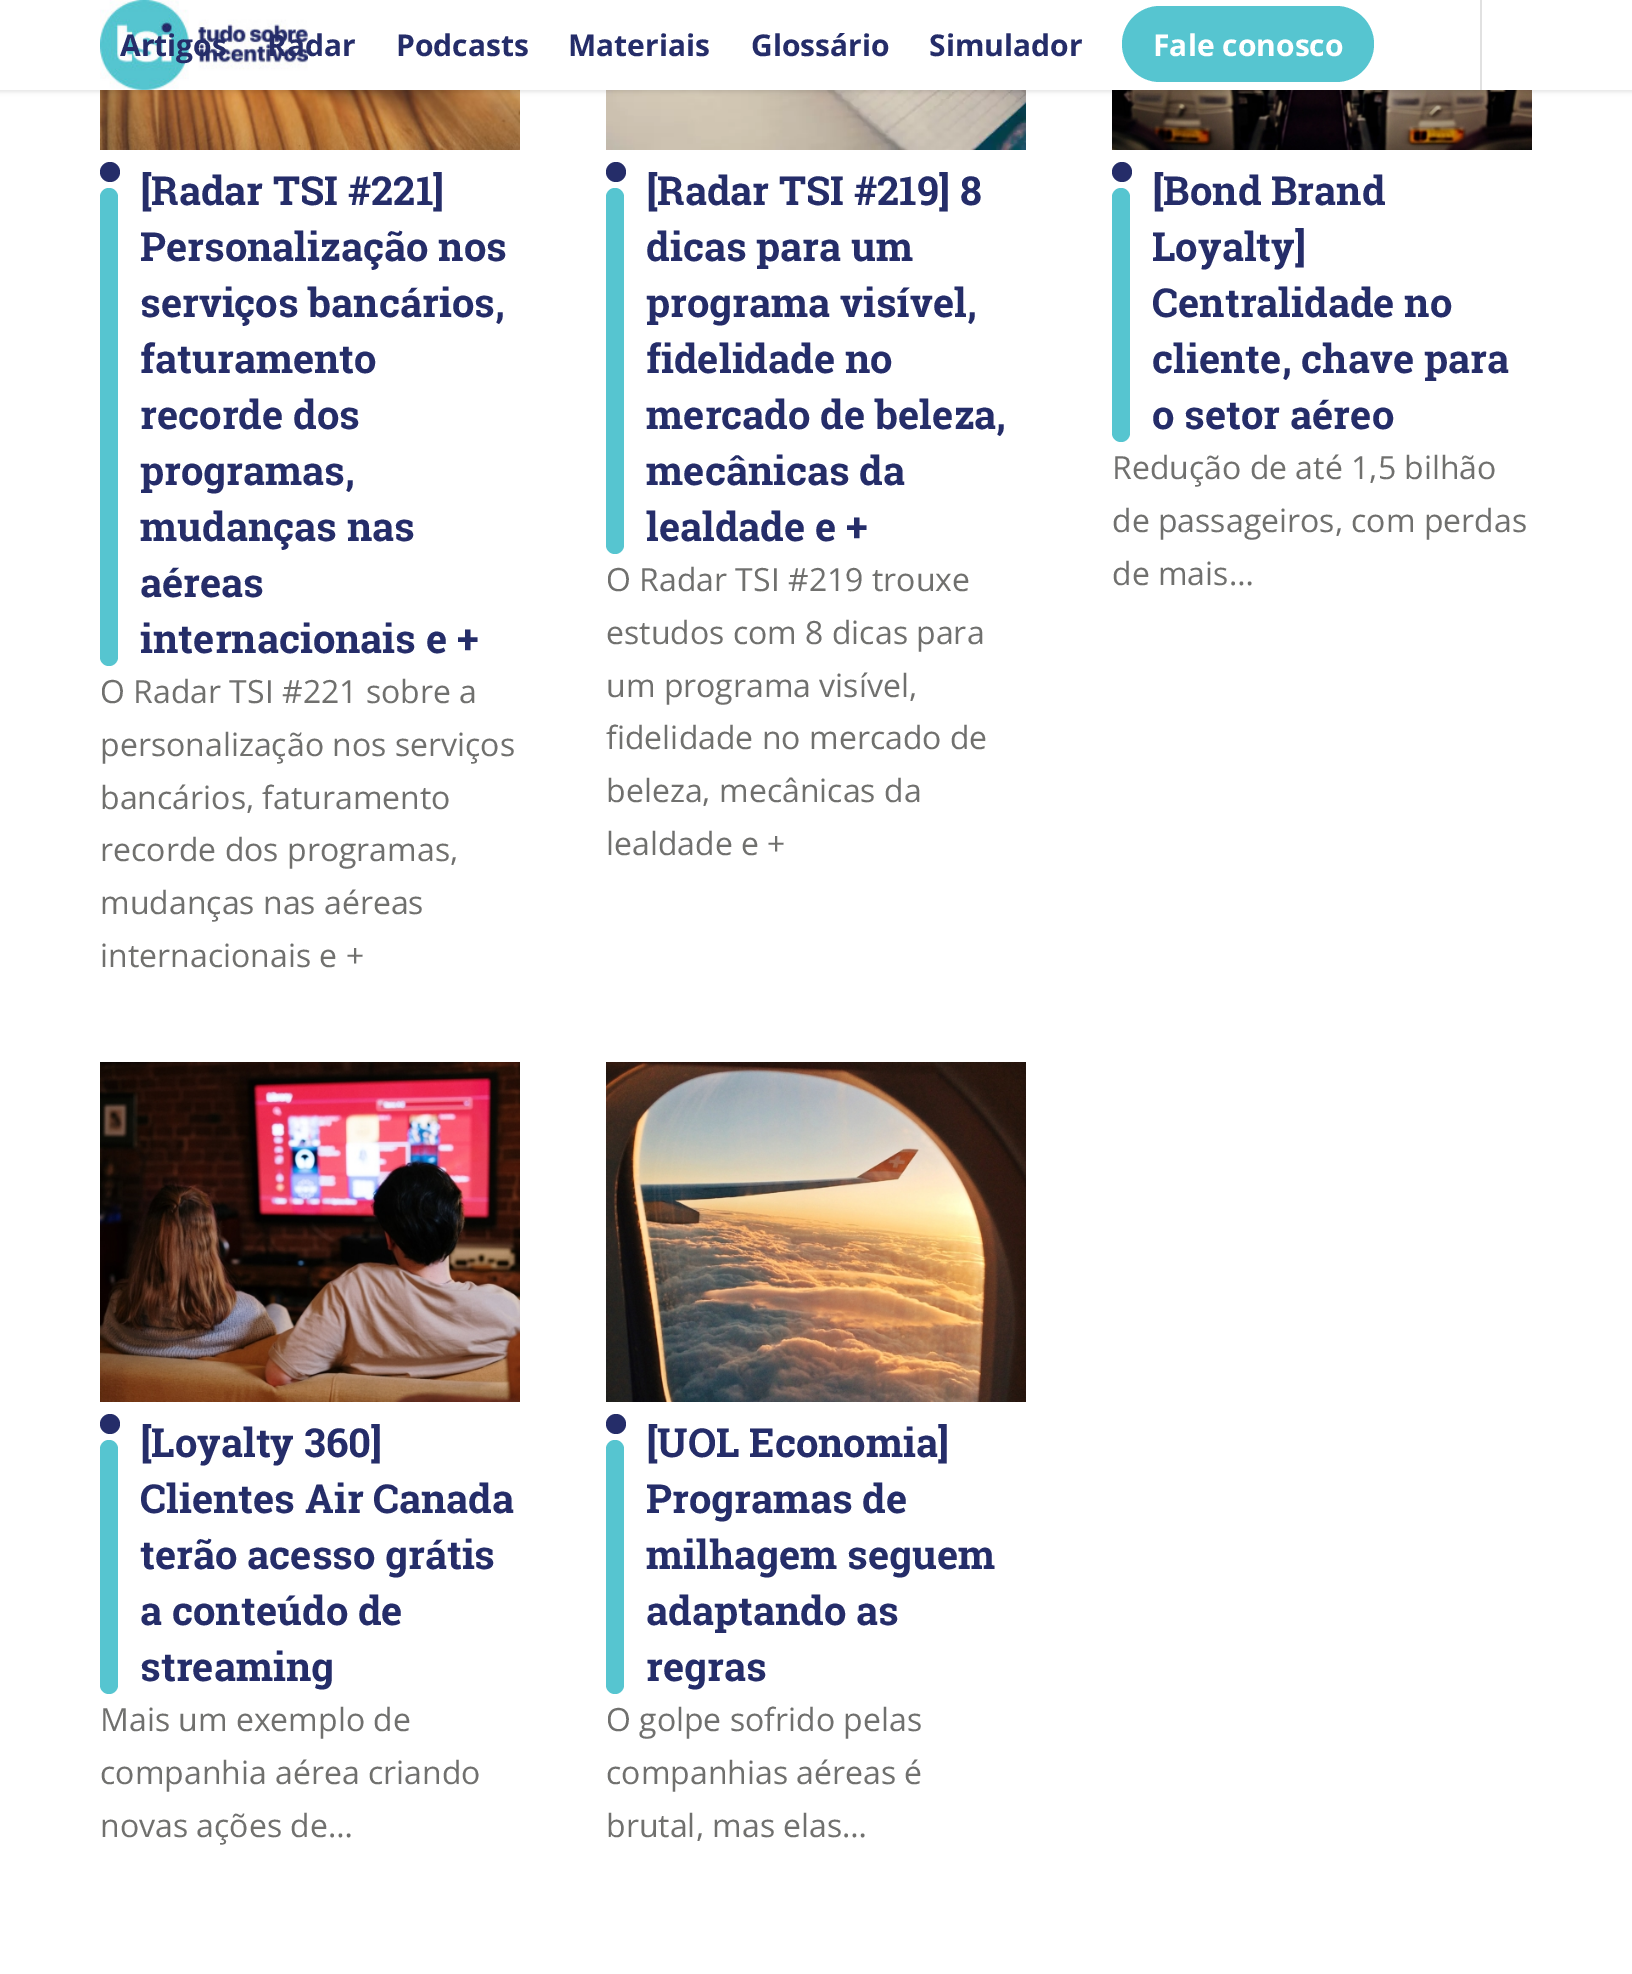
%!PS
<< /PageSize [1632 1974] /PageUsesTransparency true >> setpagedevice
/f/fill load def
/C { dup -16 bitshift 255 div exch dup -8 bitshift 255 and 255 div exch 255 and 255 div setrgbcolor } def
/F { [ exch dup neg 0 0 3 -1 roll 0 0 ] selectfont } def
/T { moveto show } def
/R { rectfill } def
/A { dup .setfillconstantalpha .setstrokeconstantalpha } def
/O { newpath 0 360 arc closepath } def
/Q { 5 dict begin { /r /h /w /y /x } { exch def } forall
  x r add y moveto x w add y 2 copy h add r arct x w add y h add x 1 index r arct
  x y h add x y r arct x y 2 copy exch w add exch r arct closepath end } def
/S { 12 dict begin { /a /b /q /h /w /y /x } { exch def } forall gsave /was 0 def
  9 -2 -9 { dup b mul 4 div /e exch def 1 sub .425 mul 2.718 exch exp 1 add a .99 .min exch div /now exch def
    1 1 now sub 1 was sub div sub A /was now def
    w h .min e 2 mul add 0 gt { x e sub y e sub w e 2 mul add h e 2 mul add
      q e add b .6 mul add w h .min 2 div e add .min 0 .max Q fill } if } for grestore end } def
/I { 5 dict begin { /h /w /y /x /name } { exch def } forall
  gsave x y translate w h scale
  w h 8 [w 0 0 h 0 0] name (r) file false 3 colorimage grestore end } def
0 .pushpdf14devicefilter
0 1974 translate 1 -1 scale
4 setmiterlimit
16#FFFFFF C
0 0 1632 1974 R
(2.rgb) 100 90 420 60 I
(3.rgb) 606 90 420 60 I
(4.rgb) 1112 90 420 60 I
16#000000 C
-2 -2 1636 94 0 2 .1 S
16#FFFFFF C
0 0 1632 90 R
(1.rgb) 100 0 208 90 I
16#E1E1E1 C
1480 0 2 90 R
/OpenSans-Bold 30 F
16#252D69 C
(Artigos) 120 56 T
(Radar) 267 56 T
(Podcasts) 396 56 T
(Materiais) 568 56 T
(Glossário) 751 56 T
(Simulador) 929 56 T
16#56C5D0 C
1122 6 252 76 38 Q f
16#FFFFFF C
(Fale conosco) 1153 56 T
16#252D69 C
110 172 10 O f
/RobotoSlab-Bold 40 F
([Radar TSI #221]) 140 205 T
16#56C5D0 C
100 188 18 478 9 Q f
16#252D69 C
(Personalização nos) 140 261 T
(serviços bancários,) 140 317 T
(faturamento) 140 373 T
(recorde dos) 140 429 T
(programas,) 140 485 T
(mudanças nas) 140 541 T
(aéreas) 140 597 T
(internacionais e +) 140 653 T
/OpenSans-Regular 32 F
16#70706E C
(O Radar TSI #221 sobre a) 100 703 T
(personalização nos serviços) 100 756 T
(bancários, faturamento) 100 809 T
(recorde dos programas,) 100 861 T
(mudanças nas aéreas) 100 914 T
(internacionais e +) 100 967 T
16#252D69 C
616 172 10 O f
/RobotoSlab-Bold 40 F
([Radar TSI #219] 8) 646 205 T
16#56C5D0 C
606 188 18 366 9 Q f
16#252D69 C
(dicas para um) 646 261 T
(programa visível,) 646 317 T
(fidelidade no) 646 373 T
(mercado de beleza,) 646 429 T
(mecânicas da) 646 485 T
(lealdade e +) 646 541 T
/OpenSans-Regular 32 F
16#70706E C
(O Radar TSI #219 trouxe) 606 591 T
(estudos com 8 dicas para) 606 644 T
(um programa visível,) 606 697 T
(fidelidade no mercado de) 606 749 T
(beleza, mecânicas da) 606 802 T
(lealdade e +) 606 855 T
16#252D69 C
1122 172 10 O f
/RobotoSlab-Bold 40 F
([Bond Brand) 1152 205 T
16#56C5D0 C
1112 188 18 254 9 Q f
16#252D69 C
(Loyalty]) 1152 261 T
(Centralidade no) 1152 317 T
(cliente, chave para) 1152 373 T
(o setor aéreo) 1152 429 T
/OpenSans-Regular 32 F
16#70706E C
(Redução de até 1,5 bilhão) 1112 479 T
(de passageiros, com perdas) 1112 532 T
(de mais…) 1112 585 T
(5.rgb) 100 1062 420 340 I
16#252D69 C
110 1424 10 O f
/RobotoSlab-Bold 40 F
([Loyalty 360]) 140 1457 T
16#56C5D0 C
100 1440 18 254 9 Q f
16#252D69 C
(Clientes Air Canada) 140 1513 T
(terão acesso grátis) 140 1569 T
(a conteúdo de) 140 1625 T
(streaming) 140 1681 T
/OpenSans-Regular 32 F
16#70706E C
(Mais um exemplo de) 100 1731 T
(companhia aérea criando) 100 1784 T
(novas ações de…) 100 1837 T
(6.rgb) 606 1062 420 340 I
16#252D69 C
616 1424 10 O f
/RobotoSlab-Bold 40 F
([UOL Economia]) 646 1457 T
16#56C5D0 C
606 1440 18 254 9 Q f
16#252D69 C
(Programas de) 646 1513 T
(milhagem seguem) 646 1569 T
(adaptando as) 646 1625 T
(regras) 646 1681 T
/OpenSans-Regular 32 F
16#70706E C
(O golpe sofrido pelas) 606 1731 T
(companhias aéreas é) 606 1784 T
(brutal, mas elas…) 606 1837 T
.poppdf14devicefilter showpage
